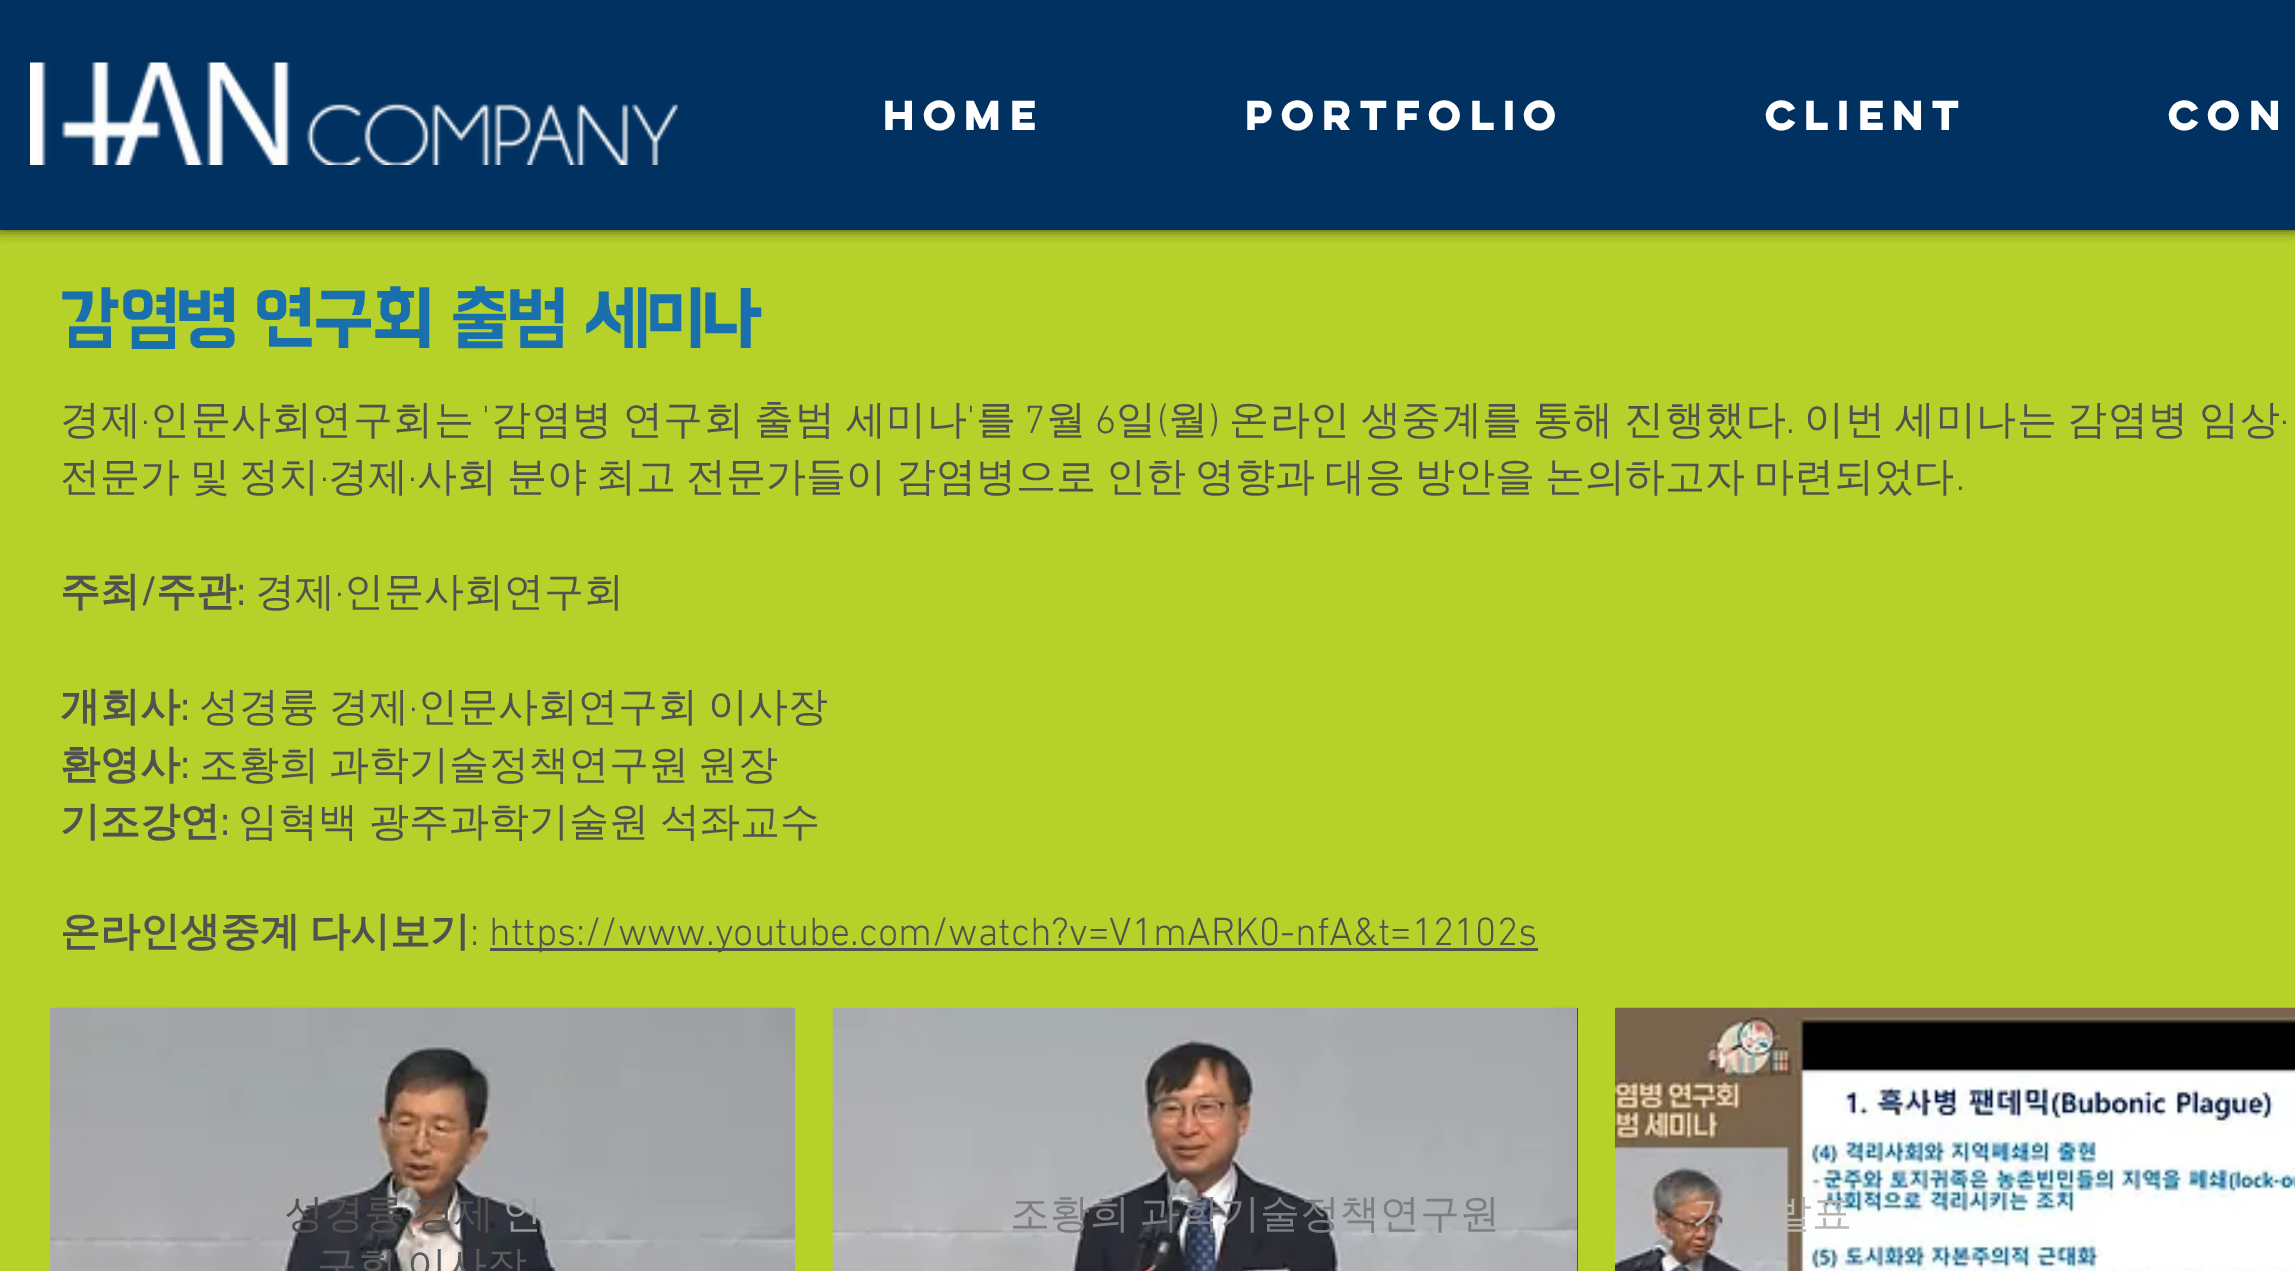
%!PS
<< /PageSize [2295 1271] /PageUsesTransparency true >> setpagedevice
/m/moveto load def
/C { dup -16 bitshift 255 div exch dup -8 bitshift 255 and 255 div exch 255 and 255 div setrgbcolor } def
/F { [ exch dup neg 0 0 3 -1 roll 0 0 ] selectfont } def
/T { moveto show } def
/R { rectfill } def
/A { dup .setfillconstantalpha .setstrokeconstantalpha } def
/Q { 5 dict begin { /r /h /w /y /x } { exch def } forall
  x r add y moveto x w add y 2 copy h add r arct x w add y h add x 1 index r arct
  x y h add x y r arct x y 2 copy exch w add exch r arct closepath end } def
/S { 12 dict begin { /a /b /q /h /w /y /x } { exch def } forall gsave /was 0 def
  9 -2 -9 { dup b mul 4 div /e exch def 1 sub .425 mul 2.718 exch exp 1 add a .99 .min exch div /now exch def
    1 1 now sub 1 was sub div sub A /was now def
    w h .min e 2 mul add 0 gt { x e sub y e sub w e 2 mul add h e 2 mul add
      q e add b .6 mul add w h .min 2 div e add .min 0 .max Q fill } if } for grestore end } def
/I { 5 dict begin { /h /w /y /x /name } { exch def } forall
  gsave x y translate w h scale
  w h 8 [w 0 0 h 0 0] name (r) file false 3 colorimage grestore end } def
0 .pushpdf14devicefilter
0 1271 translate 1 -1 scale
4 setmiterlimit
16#B5D12A C
0 0 2295 1271 R
16#000000 C
0 0 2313 230 0 6 .7 S
16#003161 C
0 0 2295 230 R
(1.rgb) 30 62 648 103 I
/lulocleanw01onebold-Bold 37.5 F
16#FFFFFF C
(Home) 883 130 T
(Portfolio) 1245 130 T
(Client) 1765 130 T
(Con) 2168 130 T
/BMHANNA-Regular 72.5 F
16#1A70AD C
(감염병 연구회 출범 세미나) 60 340 T
/WenQuanYiZenHei-Medium 40 F
16#53514F C
60 433 m .5 0 (경제) ashow
/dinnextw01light-Light 40 F
141 433 m .5 0 (·) ashow
/WenQuanYiZenHei-Medium 40 F
150 433 m .5 0 (인문사회연구회는) ashow
/dinnextw01light-Light 40 F
482 433 m .5 0 (') ashow
/WenQuanYiZenHei-Medium 40 F
491 433 m -2.25 0 32 .5 0 (감염병 연구회 출범 세미나) awidthshow
/dinnextw01light-Light 40 F
967 433 m .5 0 (') ashow
/WenQuanYiZenHei-Medium 40 F
976 433 m .5 0 (를) ashow
/dinnextw01light-Light 40 F
1024 433 m .5 0 (7) ashow
/WenQuanYiZenHei-Medium 40 F
1046 433 m .5 0 (월) ashow
/dinnextw01light-Light 40 F
1095 433 m .5 0 (6) ashow
/WenQuanYiZenHei-Medium 40 F
1116 433 m .5 0 (일) ashow
/dinnextw01light-Light 40 F
1157 433 m .5 0 (\() ashow
/WenQuanYiZenHei-Medium 40 F
1168 433 m .5 0 (월) ashow
/dinnextw01light-Light 40 F
1209 433 m .5 0 (\)) ashow
/WenQuanYiZenHei-Medium 40 F
1229 433 m -2.25 0 32 .5 0 (온라인 생중계를 통해 진행했다) awidthshow
1804 433 m -2.25 0 32 .5 0 (이번 세미나는 감염병 임상) awidthshow
/dinnextw01light-Light 40 F
2280 433 m .5 0 (·) ashow
1786 433 m .5 0 (.) ashow
/WenQuanYiZenHei-Medium 40 F
60 490 m -2.25 0 32 (전문가 및 정치) widthshow
/dinnextw01light-Light 40 F
(·) 320 490 T
/WenQuanYiZenHei-Medium 40 F
(경제) 328 490 T
/dinnextw01light-Light 40 F
(·) 408 490 T
/WenQuanYiZenHei-Medium 40 F
417 490 m -2.25 0 32 (사회 분야 최고 전문가들이 감염병으로 인한 영향과 대응 방안을 논의하고자 마련되었다) widthshow
/dinnextw01light-Light 40 F
(.) 1956 490 T
/WenQuanYiZenHei-Bold 40 F
(주최) 60 605 T
/dinnextw01light-Bold 40 F
(/) 140 605 T
/WenQuanYiZenHei-Bold 40 F
(주관) 156 605 T
/dinnextw01light-Bold 40 F
(:) 236 605 T
/WenQuanYiZenHei-Medium 40 F
(경제) 255 605 T
/dinnextw01light-Light 40 F
(·) 335 605 T
/WenQuanYiZenHei-Medium 40 F
(인문사회연구회) 344 605 T
/WenQuanYiZenHei-Bold 40 F
(개회사) 60 720 T
/dinnextw01light-Bold 40 F
(:) 180 720 T
/WenQuanYiZenHei-Medium 40 F
199 720 m -2.25 0 32 (성경륭 경제) widthshow
/dinnextw01light-Light 40 F
(·) 409 720 T
/WenQuanYiZenHei-Medium 40 F
418 720 m -2.25 0 32 (인문사회연구회 이사장) widthshow
/WenQuanYiZenHei-Bold 40 F
(환영사) 60 778 T
/dinnextw01light-Bold 40 F
(:) 180 778 T
/WenQuanYiZenHei-Medium 40 F
199 778 m -2.25 0 32 (조황희 과학기술정책연구원 원장) widthshow
/WenQuanYiZenHei-Bold 40 F
(기조강연) 60 835 T
/dinnextw01light-Bold 40 F
(:) 220 835 T
/WenQuanYiZenHei-Medium 40 F
238 835 m -1 0 32 (임혁백 광주과학기술원 석좌교수) widthshow
/WenQuanYiZenHei-Bold 40 F
(온라인생중계) 60 945 T
(다시보기) 310 945 T
/dinnextw01light-Light 40 F
(:) 470 945 T
490 948 1048 3 R
(https://www.youtube.com/watch?v=V1mARK0-nfA&t=12102s) 489 945 T
(2.rgb) 50 1007 745 264 I
/WenQuanYiZenHei-Medium 40 F
284 1227 m -2 0 32 (성경륭 경제) widthshow
16#9A9CA0 C
(인) 502 1227 T
16#5A5B5E C
317 1279 m -2 0 32 (구회 이사장) widthshow
16#2F2E2E C
1577 1008 1 263 R
(3.rgb) 832 1007 746 264 I
16#7B7D83 C
1010 1227 m -2 0 32 (조황희 과학기술정책연구원) widthshow
(4.rgb) 1615 1007 680 264 I
16#B9B5B1 C
(기조발표) 1692 1227 T
.poppdf14devicefilter showpage
